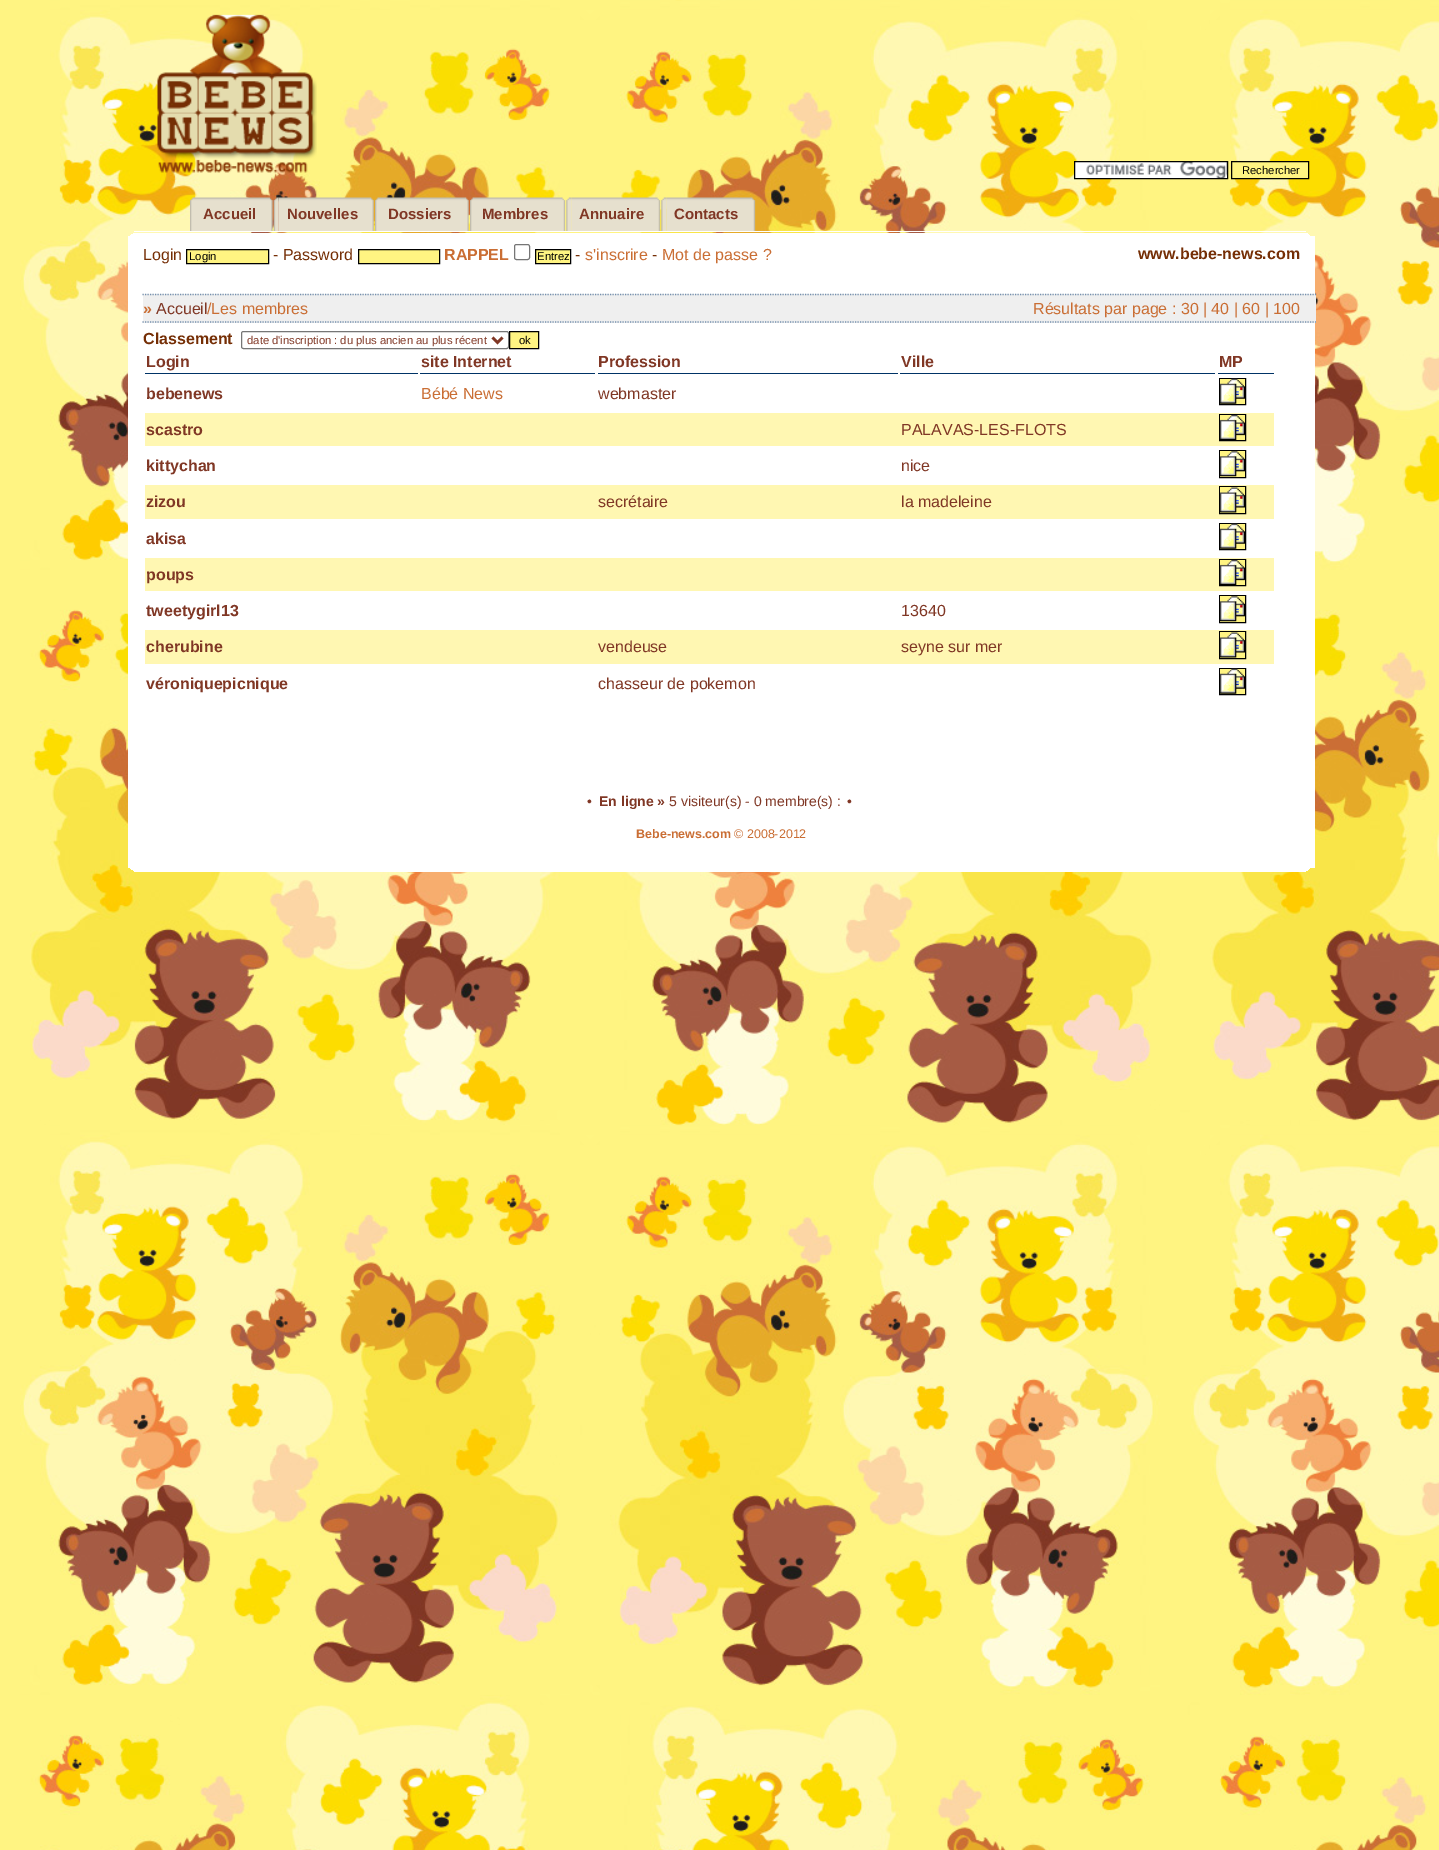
%!PS
<< /PageSize [1439 1850] >> setpagedevice
/m/moveto load def
/l/rlineto load def
/z/closepath load def
/f/fill load def
/s/stroke load def
/q/gsave load def
/Q_/grestore load def
/w/setlinewidth load def
/C { dup -16 bitshift 255 div exch dup -8 bitshift 255 and 255 div exch 255 and 255 div setrgbcolor } def
/F { [ exch dup neg 0 0 3 -1 roll 0 0 ] selectfont } def
/T { moveto show } def
/R { rectfill } def
/Q { 5 dict begin { /r /h /w /y /x } { exch def } forall
  x r add y moveto x w add y 2 copy h add r arct x w add y h add x 1 index r arct
  x y h add x y r arct x y 2 copy exch w add exch r arct closepath end } def
/I { 5 dict begin { /h /w /y /x /name } { exch def } forall
  gsave x y translate w h scale
  w h 8 [w 0 0 h 0 0] name (r) file false 3 colorimage grestore end } def
0 1850 translate 1 -1 scale
4 setmiterlimit
16#FFF482 C
0 0 1439 1850 R
(1.rgb) 20 0 1419 1850 I
(2.rgb) 157 14 160 159 I
16#FFFFFF C
1075 162 152 16 R
(3.rgb) 1086 162 141 16 I
16#000000 C
1074.5 161.5 153 17 rectstroke
16#FFF482 C
1231.5 161.5 m 77 0 l 0 17 l -77 0 l z q f Q_
16#000000 C
s
/LiberationSans-Regular 11.25 F
(Rechercher) 1242 174 T
(4.rgb) 190 197 5 34 I
(5.rgb) 195 197 78 34 I
/LiberationSans-Bold 15 F
16#803725 C
(Accueil) 203 219 T
(6.rgb) 273 197 6 34 I
(7.rgb) 278 197 96 34 I
(Nouvelles) 287 219 T
(8.rgb) 375 197 5 34 I
(9.rgb) 380 197 89 34 I
(Dossiers) 388 219 T
(10.rgb) 470 197 5 34 I
(11.rgb) 475 197 91 34 I
(Membres) 482 219 T
(12.rgb) 566 197 6 34 I
(13.rgb) 571 197 90 34 I
(Annuaire) 579 219 T
(14.rgb) 661 197 6 34 I
(15.rgb) 666 197 90 34 I
(Contacts) 674 219 T
16#FFFFFF C
134 231 1172 1 R
133 233 1175 1 R
131 234 1178 1 R
130 235 1180 1 R
128 236 1187 632 R
/LiberationSans-Regular 16 F
16#752E05 C
(Login) 143 260 T
16#FFF482 C
186.5 249.5 m 82 0 l 0 14 l -82 0 l z q f Q_
16#000000 C
s
/LiberationSans-Regular 11.25 F
(Login) 189 260 T
/LiberationSans-Regular 16 F
16#752E05 C
(- Password) 273 260 T
16#FFF482 C
358.5 249.5 m 81 0 l 0 14 l -81 0 l z q f Q_
16#000000 C
s
/LiberationSans-Bold 16 F
16#CA6E34 C
(RAPPEL) 444 260 T
16#767676 C
514.5 244.5 15 15 2 Q s
16#FFF482 C
535.5 249.5 m 35 0 l 0 14 l -35 0 l z q f Q_
16#000000 C
s
/LiberationSans-Regular 11.25 F
(Entrez) 537 260 T
/LiberationSans-Regular 16 F
16#752E05 C
(-) 575 260 T
16#CA6E34 C
(s'inscrire) 585 260 T
16#752E05 C
(-) 652 260 T
16#CA6E34 C
(Mot de passe ?) 662 260 T
/LiberationSans-Bold 16 F
16#752E05 C
(www.bebe-news.com) 1138 259 T
16#EFEFEF C
143 294 1173 29 R
16#7590AE C
1.2 w
[1.25 1.25] 0 setdash
142.5 294.5 m 1173.5 0 l s
142.5 322 m 1173.5 0 l s
16#CA6E34 C
(») 143 314 T
/LiberationSans-Regular 16 F
16#803725 C
(Accueil) 156 314 T
16#CA6E34 C
(/Les membres) 207 314 T
(Résultats par page : 30 | 40 | 60 | 100) 1033 314 T
/LiberationSans-Bold 16 F
16#752E05 C
(Classement) 143 344 T
16#767676 C
1 w
[] 0 setdash
241.5 331.5 267 17 2 Q s
16#803725 C
2.5 w
492.5 337.5 m 5 5 l 5 -5 l s
/LiberationSans-Regular 11.25 F
(date d'inscription : du plus ancien au plus récent) 247 344 T
16#FFF482 C
509.5 331.5 m 29 0 l 0 17 l -29 0 l z q f Q_
16#000000 C
1 w
s
(ok) 519 344 T
16#003366 C
145 373 273 1 R
/LiberationSans-Bold 16 F
16#803725 C
(Login) 146 367 T
16#003366 C
420 373 175 1 R
16#803725 C
(site Internet) 421 367 T
16#003366 C
598 373 300 1 R
16#803725 C
(Profession) 598 367 T
16#003366 C
900 373 315 1 R
16#803725 C
(Ville) 901 367 T
16#003366 C
1218 373 56 1 R
16#803725 C
(MP) 1219 367 T
(bebenews) 146 399 T
/LiberationSans-Regular 16 F
16#CA6E34 C
(Bébé News) 421 399 T
16#803725 C
(webmaster) 598 399 T
16#FFF482 C
1219.5 378.5 m 26 0 l 0 26 l -26 0 l z q f Q_
16#000000 C
s
(16.rgb) 1220 378 25 26 I
16#FFF7B2 C
145 413 1129 33 R
/LiberationSans-Bold 16 F
16#803725 C
(scastro) 146 435 T
/LiberationSans-Regular 16 F
(PALAVAS-LES-FLOTS) 901 435 T
16#FFF482 C
1219.5 414.5 m 26 0 l 0 26 l -26 0 l z q f Q_
16#000000 C
s
(17.rgb) 1220 415 25 25 I
/LiberationSans-Bold 16 F
16#803725 C
(kittychan) 146 471 T
/LiberationSans-Regular 16 F
(nice) 901 471 T
16#FFF482 C
1219.5 450.5 m 26 0 l 0 27 l -26 0 l z q f Q_
16#000000 C
s
(18.rgb) 1220 451 25 26 I
16#FFF7B2 C
145 485 1129 34 R
/LiberationSans-Bold 16 F
16#803725 C
(zizou) 146 507 T
/LiberationSans-Regular 16 F
(secrétaire) 598 507 T
(la madeleine) 901 507 T
16#FFF482 C
1219.5 486.5 m 26 0 l 0 27 l -26 0 l z q f Q_
16#000000 C
s
(19.rgb) 1220 487 25 26 I
/LiberationSans-Bold 16 F
16#803725 C
(akisa) 146 544 T
16#FFF482 C
1219.5 523.5 m 26 0 l 0 26 l -26 0 l z q f Q_
16#000000 C
s
(16.rgb) 1220 523 25 26 I
16#FFF7B2 C
145 558 1129 33 R
16#803725 C
(poups) 146 580 T
16#FFF482 C
1219.5 559.5 m 26 0 l 0 26 l -26 0 l z q f Q_
16#000000 C
s
(17.rgb) 1220 560 25 25 I
16#803725 C
(tweetygirl13) 146 616 T
/LiberationSans-Regular 16 F
(13640) 901 616 T
16#FFF482 C
1219.5 595.5 m 26 0 l 0 27 l -26 0 l z q f Q_
16#000000 C
s
(18.rgb) 1220 596 25 26 I
16#FFF7B2 C
145 630 1129 34 R
/LiberationSans-Bold 16 F
16#803725 C
(cherubine) 146 652 T
/LiberationSans-Regular 16 F
(vendeuse) 598 652 T
(seyne sur mer) 901 652 T
16#FFF482 C
1219.5 631.5 m 26 0 l 0 27 l -26 0 l z q f Q_
16#000000 C
s
(19.rgb) 1220 632 25 26 I
/LiberationSans-Bold 16 F
16#803725 C
(véroniquepicnique) 146 689 T
/LiberationSans-Regular 16 F
(chasseur de pokemon) 598 689 T
16#FFF482 C
1219.5 668.5 m 26 0 l 0 26 l -26 0 l z q f Q_
16#000000 C
s
(16.rgb) 1220 668 25 26 I
/LiberationSans-Regular 14 F
16#803725 C
(•) 587 806 T
/LiberationSans-Bold 14 F
(En ligne ») 599 806 T
/LiberationSans-Regular 14 F
(5 visiteur\(s\) - 0 membre\(s\) :) 669 806 T
(•) 847 806 T
/LiberationSans-Bold 12.5 F
16#CA6E34 C
(Bebe-news.com) 636 838 T
/LiberationSans-Regular 12.5 F
(© 2008-2012) 734 838 T
16#FFFFFF C
130 868 1180 1 R
131 869 1178 1 R
133 870 1175 1 R
134 871 1172 1 R
showpage
